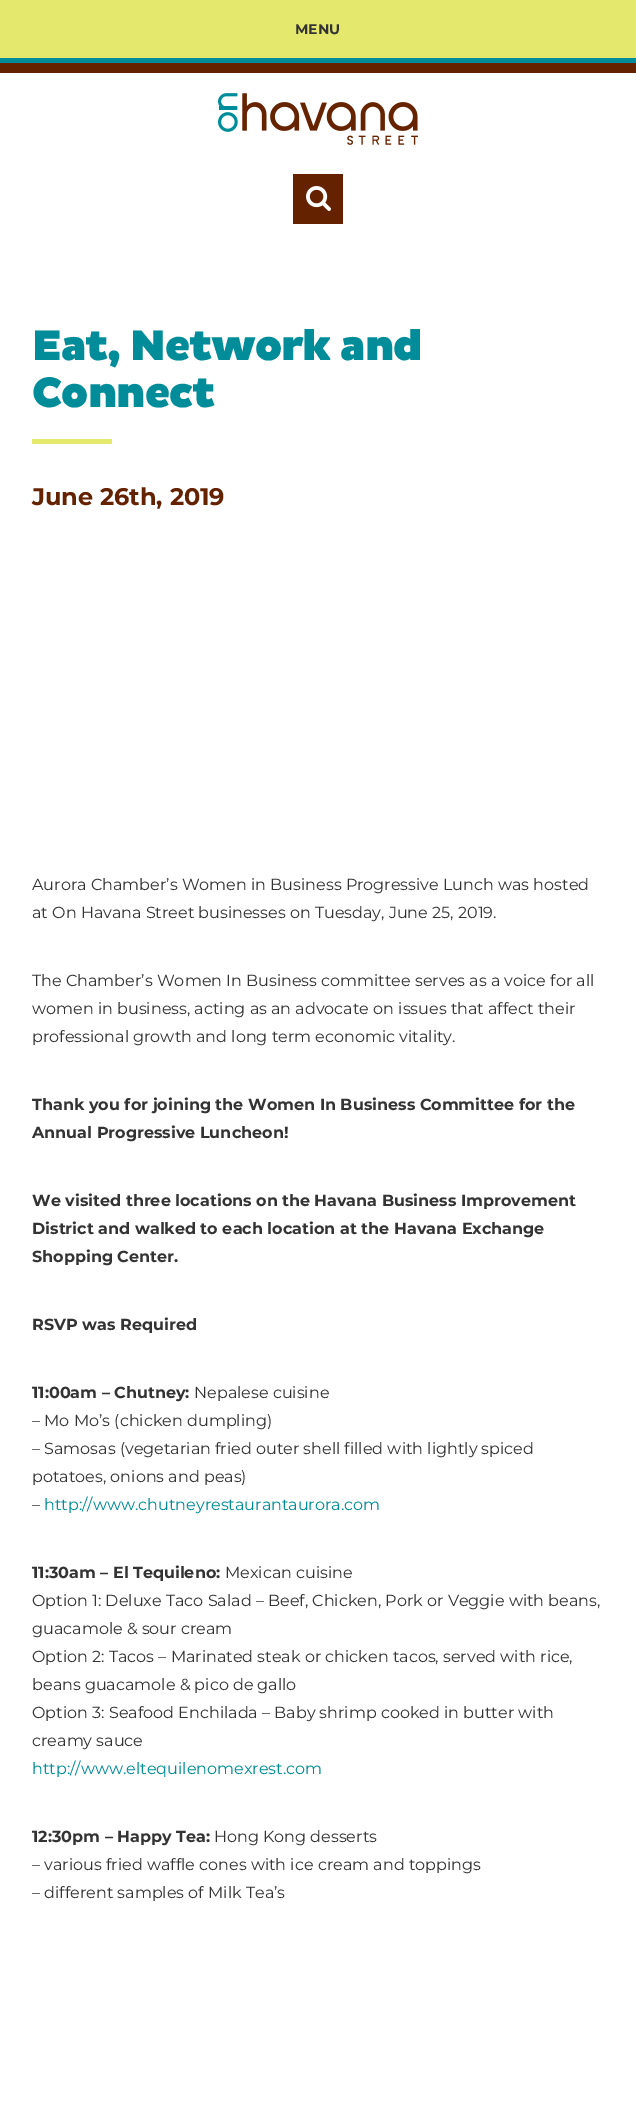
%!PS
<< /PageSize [636 2123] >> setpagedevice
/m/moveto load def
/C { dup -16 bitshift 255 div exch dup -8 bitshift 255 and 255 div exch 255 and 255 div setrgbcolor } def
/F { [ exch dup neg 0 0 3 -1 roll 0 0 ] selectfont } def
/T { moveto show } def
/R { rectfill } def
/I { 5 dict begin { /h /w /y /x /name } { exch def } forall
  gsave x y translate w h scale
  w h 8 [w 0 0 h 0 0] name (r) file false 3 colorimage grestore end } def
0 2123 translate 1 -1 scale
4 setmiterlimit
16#FFFFFF C
0 0 636 2123 R
16#E4E86C C
0 0 636 58 R
16#008C99 C
0 58 636 5 R
/Montserrat-Bold 14 F
16#333333 C
(MENU) 295 34 T
16#642200 C
0 63 636 10 R
(1.rgb) 218 93 200 52 I
293 174 50 50 R
(2.rgb) 306 186 25 25 I
/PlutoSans-Black 43.5 F
16#008C99 C
32 360 m -1 0 (Eat, Network and) ashow
32 407 m -1 0 (Connect) ashow
16#E4E86C C
32 439 80 5 R
/Montserrat-Bold 24 F
16#642200 C
(June 26th, 2019) 32 505 T
/Montserrat-Regular 16 F
16#333333 C
(Aurora Chamber’s Women in Business Progressive Lunch was hosted) 32 890 T
(at On Havana Street businesses on Tuesday, June 25, 2019.) 32 918 T
(The Chamber’s Women In Business committee serves as a voice for all) 32 986 T
(women in business, acting as an advocate on issues that affect their) 32 1014 T
(professional growth and long term economic vitality.) 32 1042 T
/Montserrat-Bold 16 F
(Thank you for joining the Women In Business Committee for the) 32 1110 T
(Annual Progressive Luncheon!) 32 1138 T
(We visited three locations on the) 32 1206 T
(Havana Business Improvement) 314 1206 T
(District and walked to each location at the Havana Exchange) 32 1234 T
(Shopping Center.) 32 1262 T
(RSVP was Required) 32 1330 T
(11:00am – Chutney:) 32 1398 T
/Montserrat-Regular 16 F
(Nepalese cuisine) 194 1398 T
(– Mo Mo’s \(chicken dumpling\)) 32 1426 T
(– Samosas \(vegetarian fried outer shell filled with lightly spiced) 32 1454 T
(potatoes, onions and peas\)) 32 1482 T
(–) 32 1510 T
16#008C99 C
(http://www.chutneyrestaurantaurora.com) 44 1510 T
/Montserrat-Bold 16 F
16#333333 C
(11:30am – El Tequileno:) 32 1578 T
/Montserrat-Regular 16 F
(Mexican cuisine) 225 1578 T
(Option 1: Deluxe Taco Salad – Beef, Chicken, Pork or Veggie with beans,) 32 1606 T
(guacamole & sour cream) 32 1634 T
(Option 2: Tacos – Marinated steak or chicken tacos, served with rice,) 32 1662 T
(beans guacamole & pico de gallo) 32 1690 T
(Option 3: Seafood Enchilada – Baby shrimp cooked in butter with) 32 1718 T
(creamy sauce) 32 1746 T
16#008C99 C
(http://www.eltequilenomexrest.com) 32 1774 T
/Montserrat-Bold 16 F
16#333333 C
(12:30pm – Happy Tea:) 32 1842 T
/Montserrat-Regular 16 F
(Hong Kong desserts) 214 1842 T
(– various fried waffle cones with ice cream and toppings) 32 1870 T
(– different samples of Milk Tea’s) 32 1898 T
showpage
